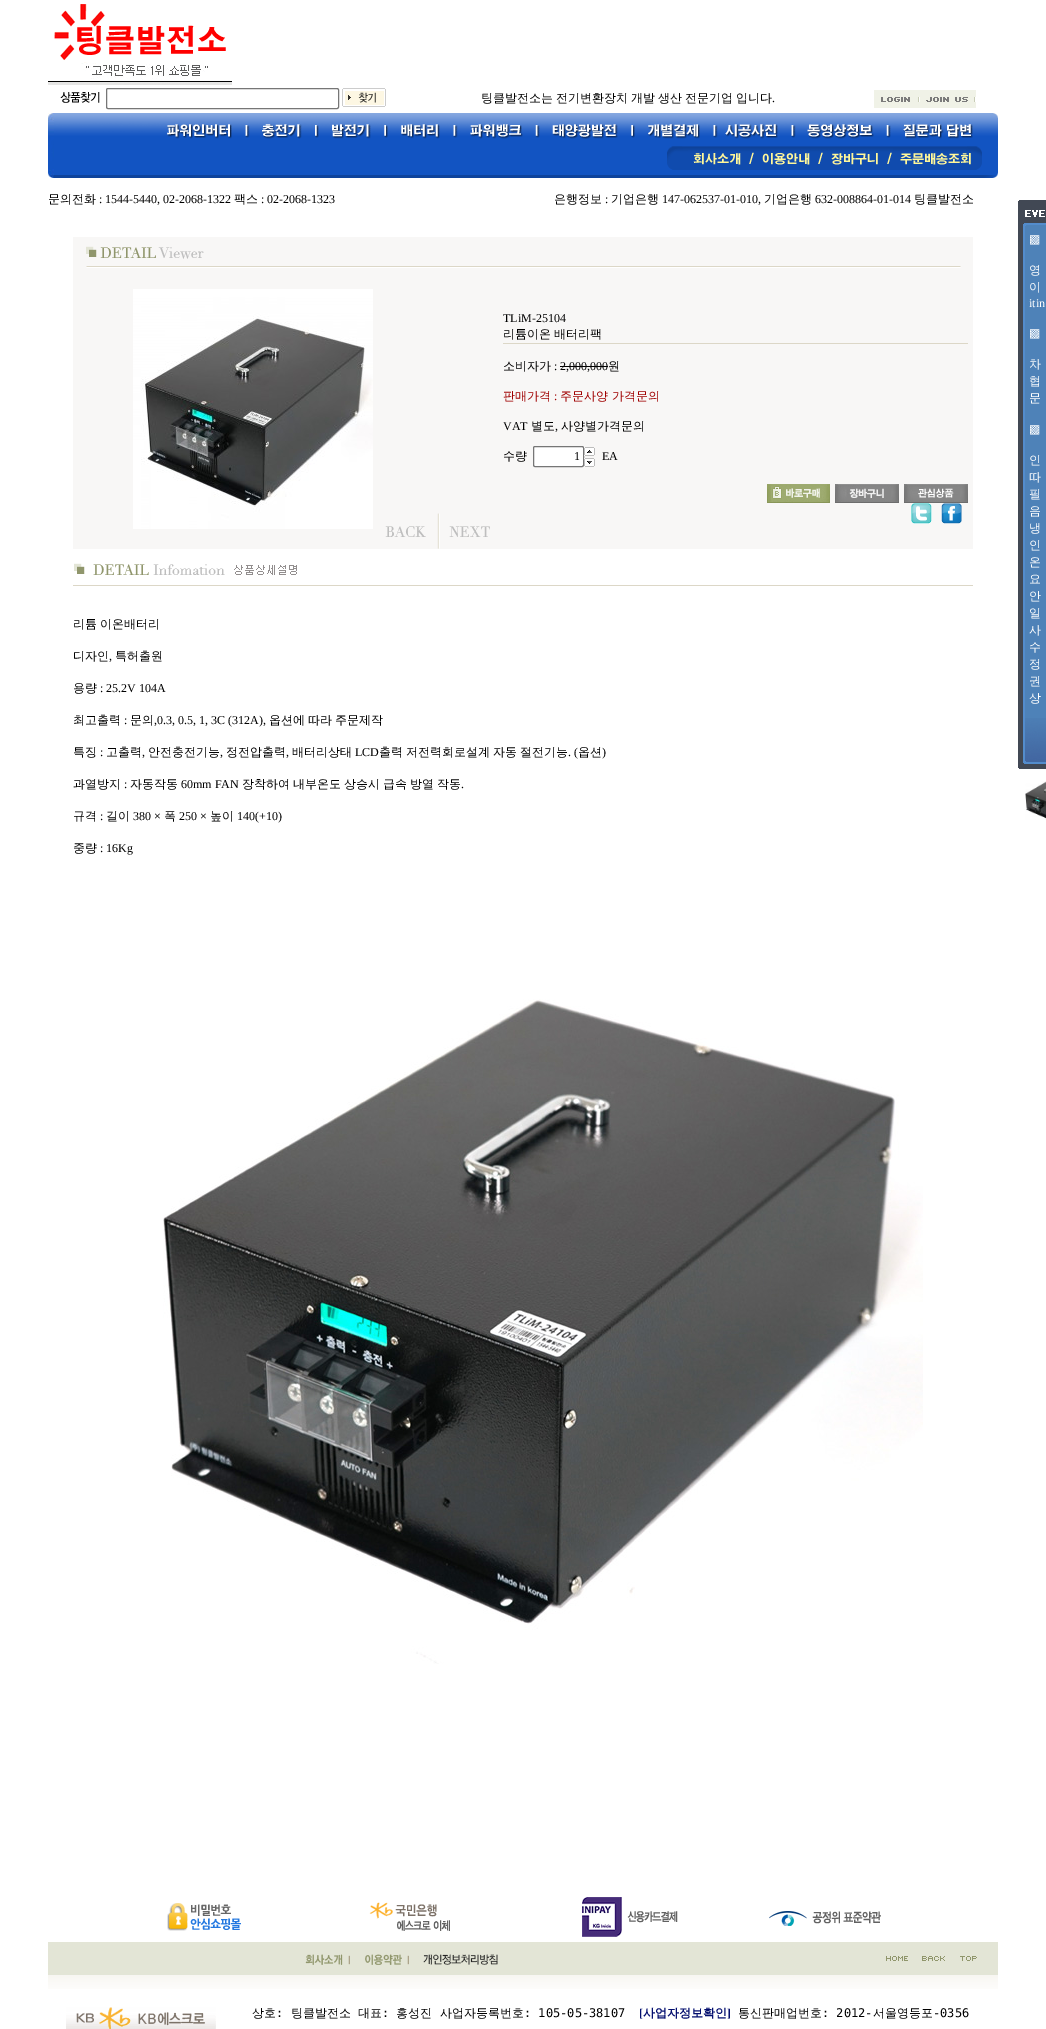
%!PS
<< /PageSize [1046 2029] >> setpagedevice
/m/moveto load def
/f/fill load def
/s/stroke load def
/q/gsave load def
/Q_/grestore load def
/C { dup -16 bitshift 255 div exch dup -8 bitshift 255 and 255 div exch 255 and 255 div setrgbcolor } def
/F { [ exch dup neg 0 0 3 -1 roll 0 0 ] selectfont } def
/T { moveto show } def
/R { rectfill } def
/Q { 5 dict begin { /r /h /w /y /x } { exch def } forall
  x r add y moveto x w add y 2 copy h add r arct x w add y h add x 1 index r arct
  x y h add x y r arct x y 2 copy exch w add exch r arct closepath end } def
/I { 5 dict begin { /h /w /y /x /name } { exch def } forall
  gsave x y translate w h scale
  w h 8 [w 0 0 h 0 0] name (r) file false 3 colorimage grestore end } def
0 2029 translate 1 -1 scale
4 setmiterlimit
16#FFFFFF C
0 0 1046 2029 R
(1.rgb) 48 4 184 81 I
(2.rgb) 60 92 40 11 I
(3.rgb) 338 89 1 1 I
106.5 88.5 232 20 1.5 Q q f Q_
16#767676 C
s
(4.rgb) 342 88 44 19 I
/WenQuanYiZenHei-Medium 12 F
16#000000 C
481 102 m -.5 0 32 (팅클발전소는 전기변환장치 개발 생산) widthshow
685 102 m -.5 0 32 (전문기업 입니다) widthshow
/LiberationSerif-Regular 12 F
(.) 772 102 T
(5.rgb) 874 90 46 18 I
(6.rgb) 920 90 56 18 I
(7.rgb) 48 113 950 65 I
/WenQuanYiZenHei-Medium 12 F
(문의전화) 48 203 T
/LiberationSerif-Regular 12 F
(: 1544-5440, 02-2068-1322) 99 203 T
/WenQuanYiZenHei-Medium 12 F
(팩스) 234 203 T
/LiberationSerif-Regular 12 F
(: 02-2068-1323) 261 203 T
/WenQuanYiZenHei-Medium 12 F
(은행정보) 554 203 T
/LiberationSerif-Regular 12 F
(:) 605 203 T
/WenQuanYiZenHei-Medium 12 F
(기업은행) 611 203 T
/LiberationSerif-Regular 12 F
(147-062537-01-010,) 662 203 T
/WenQuanYiZenHei-Medium 12 F
(기업은행) 764 203 T
/LiberationSerif-Regular 12 F
(632-008864-01-014) 815 203 T
/WenQuanYiZenHei-Medium 12 F
(팅클발전소) 914 203 T
(8.rgb) 73 237 900 32 I
16#F8F7F6 C
73 269 900 280 R
(9.rgb) 133 289 240 240 I
/LiberationSerif-Regular 12 F
16#000000 C
(TLiM-25104) 503 322 T
/WenQuanYiZenHei-Medium 12 F
503 338 m -.5 0 32 (리튬이온 배터리팩) widthshow
16#DCD7C7 C
503 343 465 1 R
16#000000 C
(소비자가) 503 370 T
/LiberationSerif-Regular 12 F
(: 2,000,000) 554 370 T
/WenQuanYiZenHei-Medium 12 F
(원) 608 370 T
560 366 48 1 R
16#A00000 C
(판매가격) 503 400 T
/LiberationSerif-Regular 12 F
(:) 554 400 T
/WenQuanYiZenHei-Medium 12 F
(주문사양 가격문의) 560 400 T
/LiberationSerif-Regular 12 F
16#000000 C
(VAT) 503 430 T
/WenQuanYiZenHei-Medium 12 F
(별도) 531 430 T
/LiberationSerif-Regular 12 F
(,) 555 430 T
/WenQuanYiZenHei-Medium 12 F
(사양별가격문의) 561 430 T
(수량) 503 460 T
16#FFFFFF C
533.5 446.5 50 20 1.5 Q q f Q_
16#767676 C
s
/LiberationSerif-Regular 12 F
16#000000 C
(1) 574 460 T
(10.rgb) 584 447 11 9 I
(EA) 602 460 T
(11.rgb) 584 458 11 9 I
(12.rgb) 767 484 63 19 I
(13.rgb) 835 484 64 19 I
(14.rgb) 904 484 64 19 I
(15.rgb) 911 503 21 21 I
(16.rgb) 941 503 21 21 I
(17.rgb) 385 513 105 36 I
(18.rgb) 74 563 223 12 I
16#DCD7C7 C
73 585 900 1 R
/WenQuanYiZenHei-Medium 12 F
16#000000 C
(리튬) 73 628 T
(이온배터리) 100 628 T
(디자인) 73 660 T
/LiberationSerif-Regular 12 F
(,) 109 660 T
/WenQuanYiZenHei-Medium 12 F
(특허출원) 115 660 T
(용량) 73 692 T
/LiberationSerif-Regular 12 F
(: 25.2V 104A) 100 692 T
/WenQuanYiZenHei-Medium 12 F
(최고출력) 73 724 T
/LiberationSerif-Regular 12 F
(:) 124 724 T
/WenQuanYiZenHei-Medium 12 F
(문의) 130 724 T
/LiberationSerif-Regular 12 F
(,0.3, 0.5, 1, 3C \(312A\),) 154 724 T
/WenQuanYiZenHei-Medium 12 F
(옵션에) 269 724 T
(따라) 308 724 T
(주문제작) 335 724 T
(특징) 73 756 T
/LiberationSerif-Regular 12 F
(:) 100 756 T
/WenQuanYiZenHei-Medium 12 F
(고출력) 106 756 T
/LiberationSerif-Regular 12 F
(,) 142 756 T
/WenQuanYiZenHei-Medium 12 F
(안전충전기능) 148 756 T
/LiberationSerif-Regular 12 F
(,) 220 756 T
/WenQuanYiZenHei-Medium 12 F
(정전압출력) 226 756 T
/LiberationSerif-Regular 12 F
(,) 286 756 T
/WenQuanYiZenHei-Medium 12 F
(배터리상태) 292 756 T
/LiberationSerif-Regular 12 F
(LCD) 355 756 T
/WenQuanYiZenHei-Medium 12 F
(출력) 379 756 T
(저전력회로설계) 406 756 T
(자동) 493 756 T
(절전기능) 520 756 T
/LiberationSerif-Regular 12 F
(. \() 568 756 T
/WenQuanYiZenHei-Medium 12 F
(옵션) 578 756 T
/LiberationSerif-Regular 12 F
(\)) 602 756 T
/WenQuanYiZenHei-Medium 12 F
(과열방지) 73 788 T
/LiberationSerif-Regular 12 F
(:) 124 788 T
/WenQuanYiZenHei-Medium 12 F
(자동작동) 130 788 T
/LiberationSerif-Regular 12 F
(60mm FAN) 181 788 T
/WenQuanYiZenHei-Medium 12 F
(장착하여) 242 788 T
(내부온도) 293 788 T
(상승시) 344 788 T
(급속) 383 788 T
(방열) 410 788 T
(작동) 437 788 T
/LiberationSerif-Regular 12 F
(.) 461 788 T
/WenQuanYiZenHei-Medium 12 F
(규격) 73 820 T
/LiberationSerif-Regular 12 F
(:) 100 820 T
/WenQuanYiZenHei-Medium 12 F
(길이) 106 820 T
/LiberationSerif-Regular 12 F
(380 ×) 133 820 T
/WenQuanYiZenHei-Medium 12 F
(폭) 164 820 T
/LiberationSerif-Regular 12 F
(250 ×) 179 820 T
/WenQuanYiZenHei-Medium 12 F
(높이) 210 820 T
/LiberationSerif-Regular 12 F
(140\(+10\)) 237 820 T
/WenQuanYiZenHei-Medium 12 F
(중량) 73 852 T
/LiberationSerif-Regular 12 F
(: 16Kg) 100 852 T
(19.rgb) 163 999 760 665 I
(20.rgb) 1018 226 28 492 I
(21.rgb) 1018 200 28 26 I
/DejaVuSans-Regular 12 F
16#FFFFFF C
(▩) 1029 243 T
/WenQuanYiZenHei-Medium 12 F
(영) 1029 274 T
(이) 1029 291 T
/LiberationSerif-Regular 12 F
(itin) 1029 307 T
/DejaVuSans-Regular 12 F
(▩) 1029 337 T
/WenQuanYiZenHei-Medium 12 F
1029 368 m -.5 0 32 (차) widthshow
(협) 1029 385 T
(문) 1029 402 T
/DejaVuSans-Regular 12 F
(▩) 1029 433 T
/WenQuanYiZenHei-Medium 12 F
1029 464 m -.5 0 32 (인) widthshow
1029 481 m -.5 0 32 (따) widthshow
(필) 1029 498 T
(음) 1029 515 T
1029 532 m -.5 0 32 (냉) widthshow
(인) 1029 549 T
(온) 1029 566 T
(요) 1029 583 T
1029 600 m -.5 0 32 (안) widthshow
(일) 1029 617 T
1029 634 m -.5 0 32 (사) widthshow
1029 651 m -.5 0 32 (수) widthshow
(정) 1029 668 T
(권) 1029 685 T
(상) 1029 702 T
(22.rgb) 1018 718 28 51 I
(23.rgb) 1025 781 21 39 I
(24.rgb) 167 1903 74 28 I
(25.rgb) 369 1902 81 29 I
(26.rgb) 582 1897 96 40 I
(27.rgb) 769 1911 112 15 I
16#E3E5D6 C
48 1942 950 33 R
(28.rgb) 305 1954 45 11 I
(29.rgb) 365 1954 44 11 I
(30.rgb) 423 1954 75 11 I
(31.rgb) 886 1956 22 5 I
(32.rgb) 922 1956 23 5 I
(33.rgb) 960 1956 17 5 I
(34.rgb) 48 1975 950 14 I
(35.rgb) 66 2007 150 22 I
16#000000 C
(상호) 252 2017 T
/DejaVuSansMono-Regular 12 F
(:) 276 2017 T
/WenQuanYiZenHei-Medium 12 F
(팅클발전소) 291 2017 T
(대표) 358 2017 T
/DejaVuSansMono-Regular 12 F
(:) 382 2017 T
/WenQuanYiZenHei-Medium 12 F
(홍성진) 396 2017 T
(사업자등록번호) 440 2017 T
/DejaVuSansMono-Regular 12 F
(: 105-05-38107) 524 2017 T
/LiberationSerif-Bold 12 F
16#040F6F C
([) 639 2017 T
/WenQuanYiZenHei-Bold 12 F
(사업자정보확인) 643 2017 T
/LiberationSerif-Bold 12 F
(]) 727 2017 T
/WenQuanYiZenHei-Medium 12 F
16#000000 C
(통신판매업번호) 738 2017 T
/DejaVuSansMono-Regular 12 F
(: 2012-) 822 2017 T
/WenQuanYiZenHei-Medium 12 F
(서울영등포) 873 2017 T
/DejaVuSansMono-Regular 12 F
(-0356) 933 2017 T
showpage
